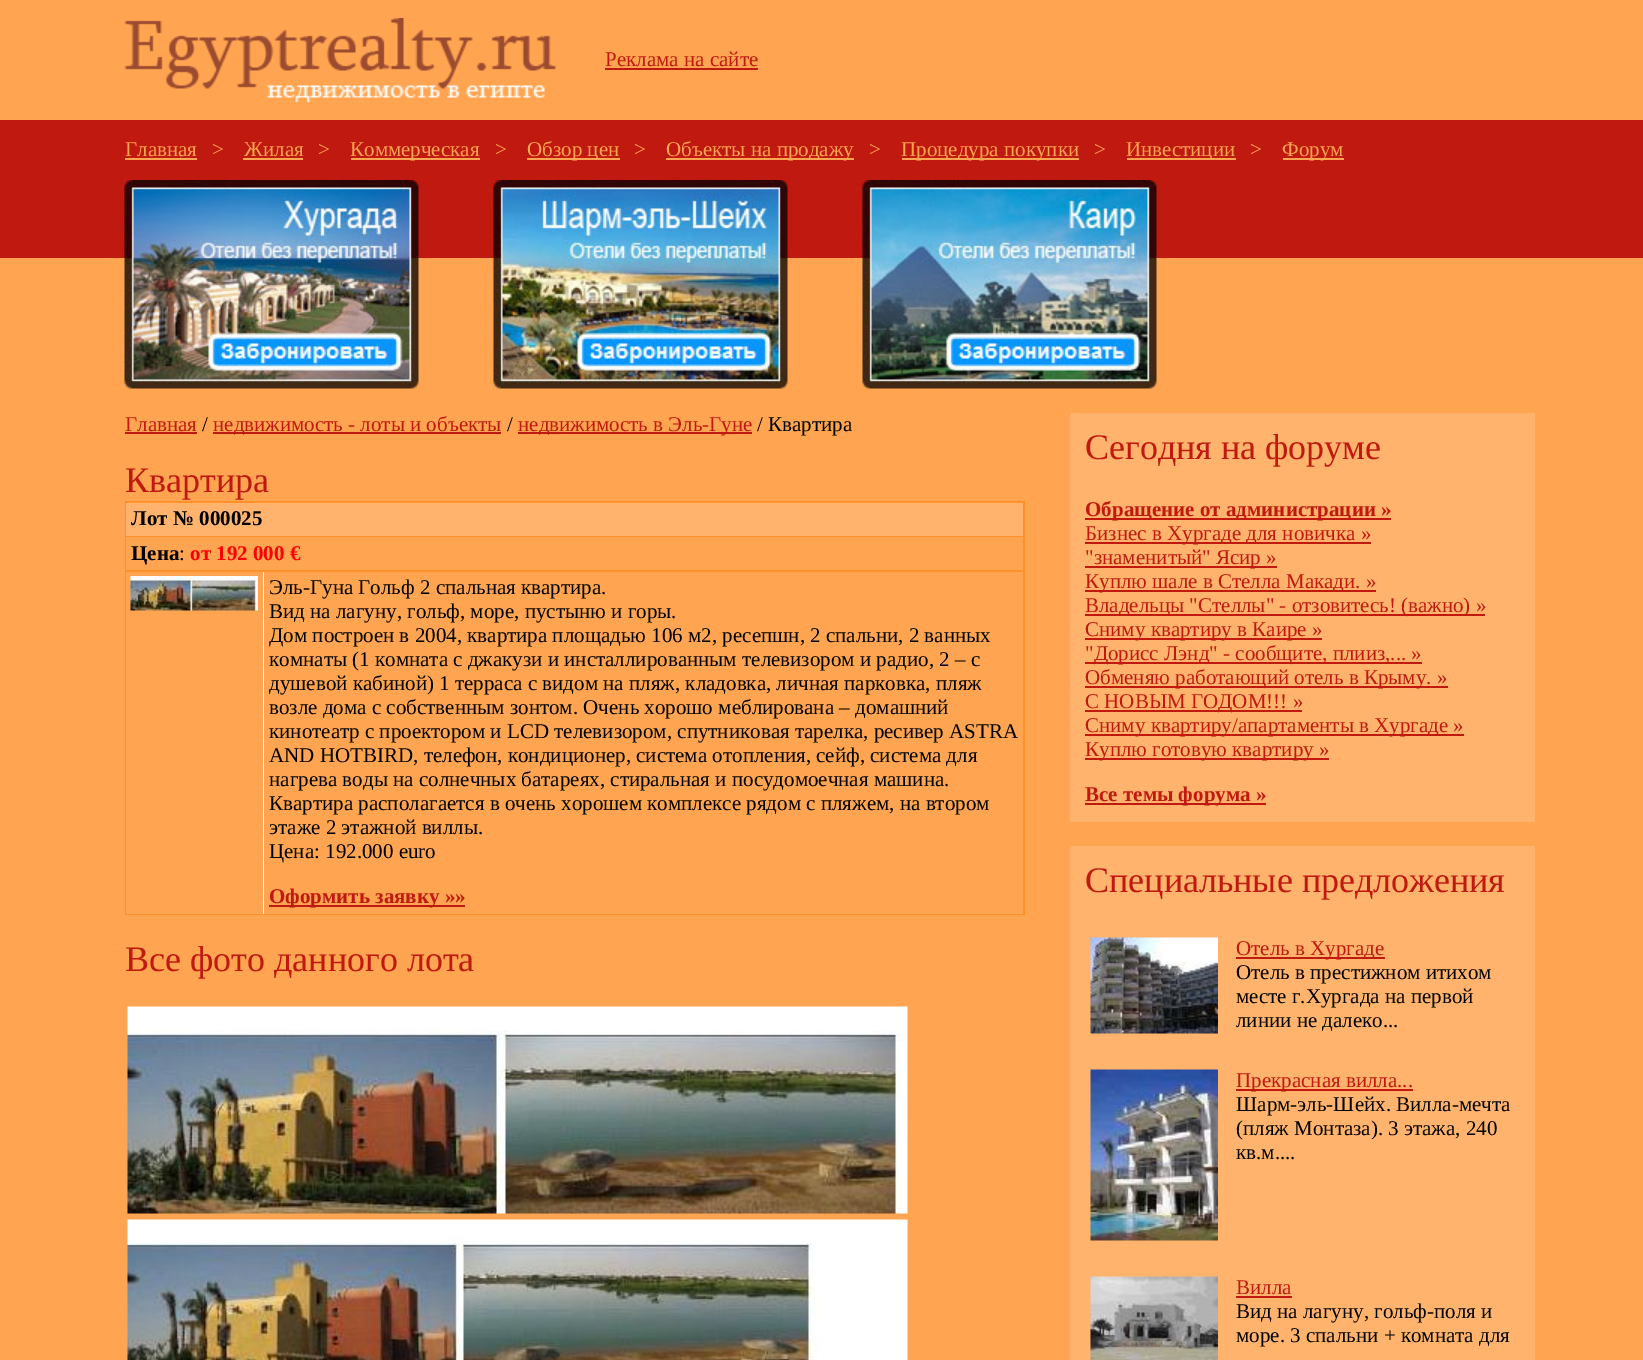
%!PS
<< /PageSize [1643 1360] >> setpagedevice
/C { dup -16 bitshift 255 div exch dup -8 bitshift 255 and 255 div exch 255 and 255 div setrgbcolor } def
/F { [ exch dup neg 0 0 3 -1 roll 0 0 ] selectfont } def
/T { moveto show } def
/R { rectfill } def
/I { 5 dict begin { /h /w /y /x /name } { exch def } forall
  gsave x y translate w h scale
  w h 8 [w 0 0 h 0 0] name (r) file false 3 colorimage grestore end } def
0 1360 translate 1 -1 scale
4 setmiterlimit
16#FFA450 C
0 0 1643 1360 R
(1.rgb) 124 18 433 84 I
/LiberationSerif-Regular 21 F
16#C01910 C
(Реклама на сайте) 605 66 T
605 68 153 2 R
0 120 1643 138 R
16#FFA450 C
(Главная) 125 156 T
125 158 72 2 R
(>) 212 156 T
(Жилая) 244 156 T
243 158 60 2 R
(>) 318 156 T
351 158 129 2 R
(Коммерческая) 350 156 T
(>) 495 156 T
527 158 93 2 R
(Обзор цен) 527 156 T
(>) 634 156 T
666 158 188 2 R
(Объекты на продажу) 666 156 T
(>) 869 156 T
902 158 177 2 R
(Процедура покупки) 901 156 T
(>) 1094 156 T
1127 158 109 2 R
(Инвестиции) 1126 156 T
(>) 1250 156 T
1283 158 61 2 R
(Форум) 1282 156 T
(2.rgb) 124 180 295 209 I
(3.rgb) 493 180 295 209 I
(4.rgb) 862 180 295 209 I
16#C01910 C
(Главная) 125 431 T
125 432 72 2 R
16#000000 C
(/) 202 431 T
16#C01910 C
213 432 288 2 R
(недвижимость - лоты и объекты) 213 431 T
16#000000 C
(/) 507 431 T
16#C01910 C
518 432 234 2 R
(недвижимость в Эль-Гуне) 518 431 T
16#000000 C
(/ Квартира) 757 431 T
/LiberationSerif-Regular 36 F
16#C01910 C
(Квартира) 125 492 T
16#FF912C C
125 501 900 414 R
16#FFB36D C
126 503 897 33 R
/LiberationSerif-Bold 21 F
16#000000 C
(Лот № 000025) 131 525 T
16#FFA450 C
126 537 897 33 R
16#000000 C
(Цена) 131 560 T
/LiberationSerif-Regular 21 F
(:) 179 560 T
/LiberationSerif-Bold 21 F
16#FF0000 C
(от 192 000 €) 190 560 T
16#FFFFFF C
263 572 1 342 R
16#FFA450 C
126 572 137 342 R
(5.rgb) 130 576 128 35 I
264 572 759 342 R
/LiberationSerif-Regular 21 F
16#000000 C
(Эль-Гуна Гольф 2 спальная квартира.) 269 594 T
(Вид на лагуну, гольф, море, пустыню и горы.) 269 618 T
(Дом построен в 2004, квартира площадью 106 м2, ресепшн, 2 спальни, 2 ванных) 269 642 T
(комнаты \(1 комната с джакузи и инсталлированным телевизором и радио, 2 – с) 269 666 T
(душевой кабиной\) 1 терраса с видом на пляж, кладовка, личная парковка, пляж) 269 690 T
(возле дома с собственным зонтом. Очень хорошо меблирована – домашний) 269 714 T
(кинотеатр с проектором и LCD телевизором, спутниковая тарелка, ресивер ASTRA) 269 738 T
(AND HOTBIRD, телефон, кондиционер, система отопления, сейф, система для) 269 762 T
(нагрева воды на солнечных батареях, стиральная и посудомоечная машина.) 269 786 T
(Квартира располагается в очень хорошем комплексе рядом с пляжем, на втором) 269 810 T
(этаже 2 этажной виллы.) 269 834 T
(Цена: 192.000 euro) 269 858 T
16#C01910 C
269 905 196 2 R
/LiberationSerif-Bold 21 F
(Оформить заявку »») 269 903 T
/LiberationSerif-Regular 36 F
(Все фото данного лота) 125 971 T
(6.rgb) 127 1006 781 208 I
(7.rgb) 127 1219 781 141 I
16#FFB36D C
1070 413 465 409 R
16#C01910 C
(Сегодня на форуме) 1085 459 T
1085 518 306 2 R
/LiberationSerif-Bold 21 F
(Обращение от администрации ») 1085 516 T
1085 542 286 2 R
/LiberationSerif-Regular 21 F
(Бизнес в Хургаде для новичка ») 1085 540 T
1085 566 192 2 R
("знаменитый" Ясир ») 1085 564 T
1085 590 291 2 R
(Куплю шале в Стелла Макади. ») 1085 588 T
1085 614 400 2 R
(Владельцы "Стеллы" - отзовитесь! \(важно\) ») 1085 612 T
1085 638 237 2 R
(Сниму квартиру в Каире ») 1085 636 T
1085 662 337 2 R
("Дорисс Лэнд" - сообщите, плииз,... ») 1085 660 T
1085 686 363 2 R
(Обменяю работающий отель в Крыму. ») 1085 684 T
1085 710 217 2 R
(С НОВЫМ ГОДОМ!!! ») 1085 708 T
1085 734 379 2 R
(Сниму квартиру/апартаменты в Хургаде ») 1085 732 T
1085 758 244 2 R
(Куплю готовую квартиру ») 1085 756 T
1085 803 181 2 R
/LiberationSerif-Bold 21 F
(Все темы форума ») 1085 801 T
16#FFB36D C
1070 846 465 514 R
/LiberationSerif-Regular 36 F
16#C01910 C
(Специальные предложения) 1085 892 T
(8.rgb) 1090 937 128 97 I
1236 957 149 2 R
/LiberationSerif-Regular 21 F
(Отель в Хургаде) 1236 955 T
16#000000 C
(Отель в престижном итихом) 1236 979 T
(месте г.Хургада на первой) 1236 1003 T
(линии не далеко...) 1236 1027 T
(9.rgb) 1090 1069 128 172 I
16#C01910 C
1236 1089 177 2 R
(Прекрасная вилла...) 1236 1087 T
16#000000 C
(Шарм-эль-Шейх. Вилла-мечта) 1236 1111 T
(\(пляж Монтаза\). 3 этажа, 240) 1236 1135 T
(кв.м....) 1236 1159 T
(10.rgb) 1090 1276 128 84 I
16#C01910 C
(Вилла) 1236 1294 T
1236 1296 56 2 R
16#000000 C
(Вид на лагуну, гольф-поля и) 1236 1318 T
(море. 3 спальни + комната для) 1236 1342 T
showpage
